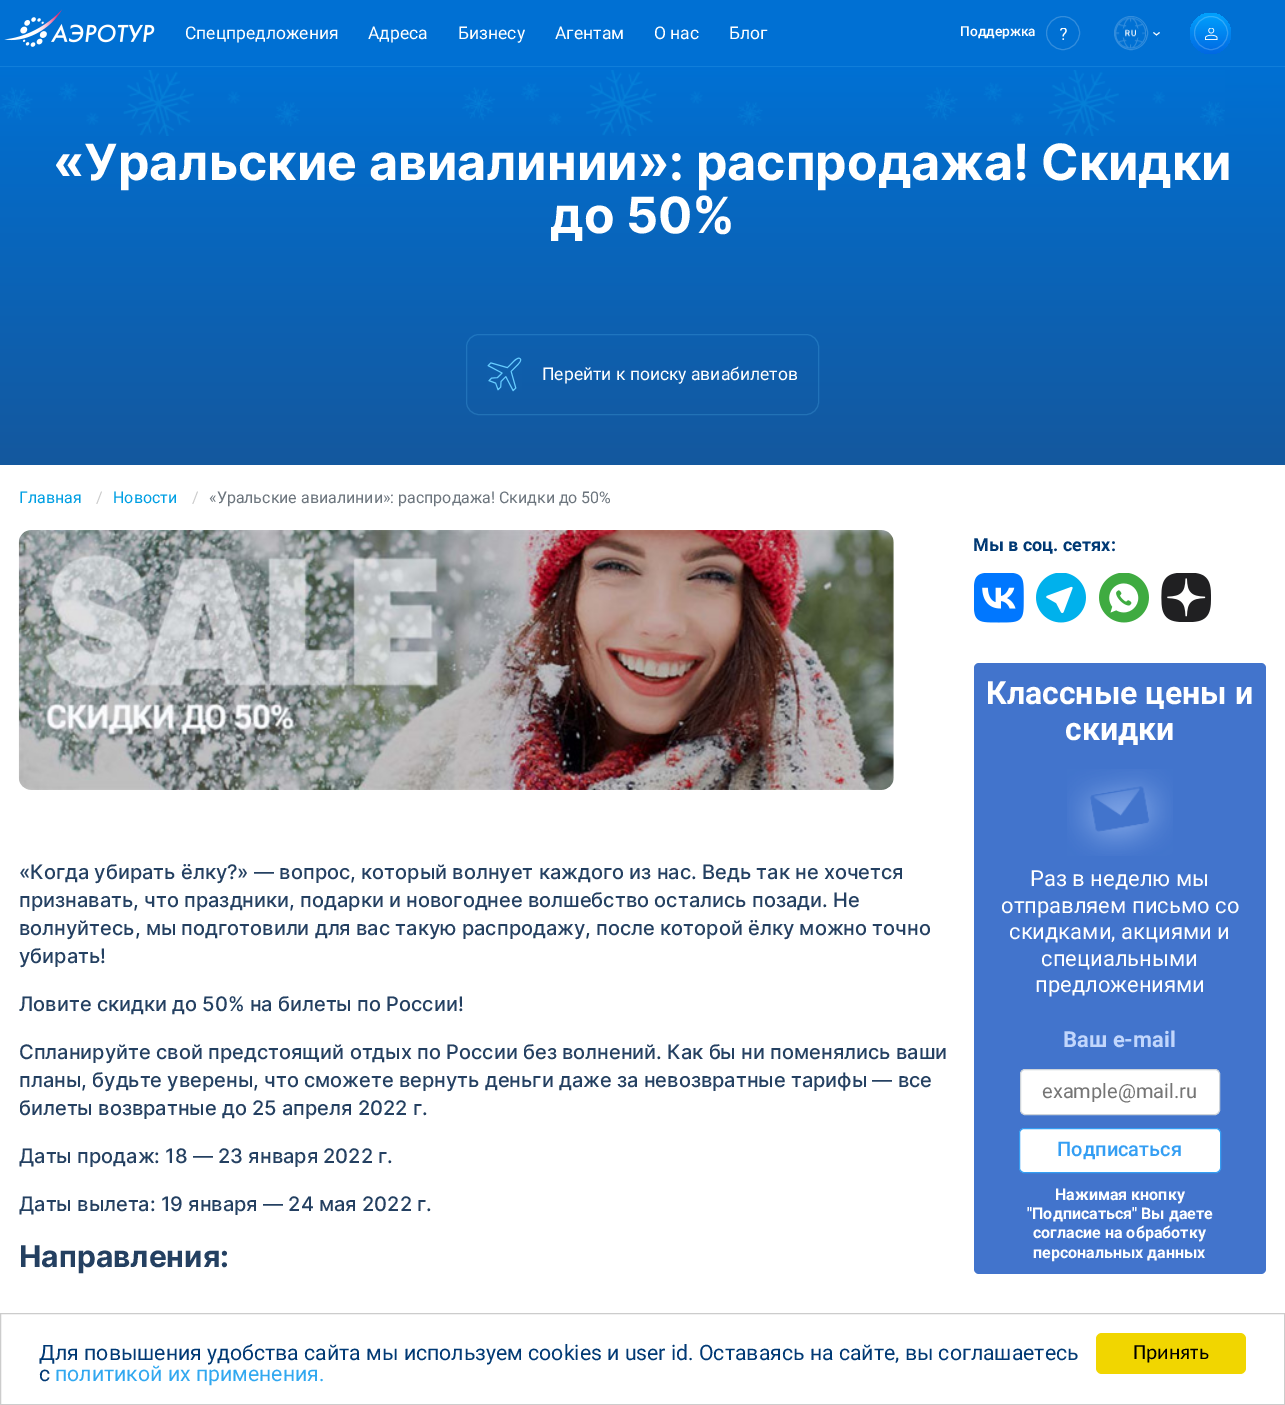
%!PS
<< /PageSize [1285 1405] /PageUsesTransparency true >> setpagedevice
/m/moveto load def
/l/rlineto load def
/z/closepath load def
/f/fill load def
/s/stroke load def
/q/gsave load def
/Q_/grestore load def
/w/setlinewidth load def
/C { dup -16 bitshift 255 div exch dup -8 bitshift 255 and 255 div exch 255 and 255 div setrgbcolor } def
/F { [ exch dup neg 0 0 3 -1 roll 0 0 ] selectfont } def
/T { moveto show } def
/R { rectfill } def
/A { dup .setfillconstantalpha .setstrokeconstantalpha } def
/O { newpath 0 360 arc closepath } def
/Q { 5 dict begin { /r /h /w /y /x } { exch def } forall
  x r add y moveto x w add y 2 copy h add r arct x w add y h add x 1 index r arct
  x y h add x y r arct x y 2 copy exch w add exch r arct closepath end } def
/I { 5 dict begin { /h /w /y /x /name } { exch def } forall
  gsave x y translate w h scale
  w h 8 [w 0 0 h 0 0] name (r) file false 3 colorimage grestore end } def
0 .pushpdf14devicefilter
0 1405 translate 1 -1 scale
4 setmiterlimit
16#FFFFFF C
0 0 1285 1405 R
16#0070D3 C
0 0 1285 68 R
16#107EDA C
0 66 1285 1 R
(1.rgb) 4 9 151 38 I
/Roboto-Regular 17.5 F
16#FFFFFF C
(Спецпредложения) 185 39 T
(Адреса) 368 39 T
(Бизнесу) 458 39 T
(Агентам) 555 39 T
(О нас) 654 39 T
(Блог) 729 39 T
/Roboto-Medium 13.75 F
(Поддержка) 960 36 T
16#338DDC C
1063 33 16.5 O s
(2.rgb) 1060 28 7 12 I
1131 33 16.5 O s
(3.rgb) 1115 17 31 33 I
16#FFFFFF C
.9 w
1159.5 32.5 m -3 2.5 l -3 -2.5 l s
q 1210.5 33.5 20.5 O clip newpath
<< /ShadingType 2 /ColorSpace /DeviceRGB /Coords [1211 12 1211 54] /Extend [true true] /Function << /FunctionType 2 /Domain [0 1] /C0 [0 .639 1] /C1 [0 .408 .886] /N 1 >> >> shfill Q_
0.2 A
1 w
1211 33 16.5 O s
1 A
(4.rgb) 1205 28 13 12 I
q 0 68 m 1285 0 l 0 397 l -1285 0 l z clip newpath
<< /ShadingType 2 /ColorSpace /DeviceRGB /Coords [643 67 643 465] /Extend [true true] /Function << /FunctionType 2 /Domain [0 1] /C0 [0 .439 .827] /C1 [.078 .345 .62] /N 1 >> >> shfill Q_
(5.rgb) 0 70 1225 66 I
/Inter-Bold 50 F
(«Уральские авиалинии»: распродажа! Скидки) 53 180 T
(до 50%) 550 233 T
0.2 A
16#66CCFF C
466.5 334.5 352 80 12.5 Q s
1 A
(6.rgb) 487 357 35 35 I
/Roboto-Regular 17.5 F
16#FFFFFF C
(Перейти к поиску авиабилетов) 542 380 T
/Roboto-Regular 16 F
16#009FE3 C
(Главная) 19 503 T
16#CCCCCC C
(/) 96 503 T
16#009FE3 C
(Новости) 113 503 T
16#CCCCCC C
(/) 192 503 T
16#6C757D C
(«Уральские авиалинии»: распродажа! Скидки до 50%) 209 503 T
(7.rgb) 18 530 876 260 I
/Inter-Medium 20 F
16#244061 C
(«Когда убирать ёлку?» — вопрос, который волнует каждого из нас. Ведь так не хочется) 19 879 T
(признавать, что праздники, подарки и новогоднее волшебство остались позади. Не) 19 907 T
(волнуйтесь, мы подготовили для вас такую распродажу, после которой ёлку можно точно) 19 935 T
(убирать!) 19 963 T
(Ловите скидки до 50% на билеты по России!) 19 1011 T
(Спланируйте свой предстоящий отдых по России без волнений. Как бы ни поменялись ваши) 19 1059 T
(планы, будьте уверены, что сможете вернуть деньги даже за невозвратные тарифы — все) 19 1087 T
(билеты возвратные до 25 апреля 2022 г.) 19 1115 T
(Даты продаж: 18 — 23 января 2022 г.) 19 1163 T
(Даты вылета: 19 января — 24 мая 2022 г.) 19 1211 T
/Inter-Bold 30 F
(Направления:) 19 1267 T
/Roboto-Bold 18 F
16#003974 C
(Мы в соц. сетях:) 973 551 T
(8.rgb) 974 573 50 50 I
(9.rgb) 1036 573 50 50 I
(10.rgb) 1099 573 50 50 I
(11.rgb) 1161 573 50 49 I
16#4274CC C
974 663 292 611 5 Q f
/Roboto-Bold 32 F
16#FFFFFF C
(Классные цены и) 986 704 T
(скидки) 1065 740 T
(12.rgb) 1067 769 106 87 I
/Roboto-Regular 22 F
(Раз в неделю мы) 1030 886 T
(отправляем письмо со) 1001 913 T
(скидками, акциями и) 1009 939 T
(специальными) 1041 966 T
(предложениями) 1035 992 T
/Roboto-Bold 22 F
16#C1D6FC C
(Ваш e-mail) 1063 1047 T
16#FFFFFF C
1020.5 1069.5 199 45 4.5 Q q f Q_
16#CED4DA C
s
/Roboto-Regular 20 F
16#757575 C
(example@mail.ru) 1042 1098 T
16#FFFFFF C
1019.5 1128.5 201 44 4.5 Q q f Q_
16#349EF3 C
s
/Roboto-Medium 20 F
(Подписаться) 1057 1156 T
/Roboto-Bold 16 F
16#FFFFFF C
(Нажимая кнопку) 1055 1200 T
("Подписаться" Вы даете) 1027 1219 T
(согласие на обработку) 1033 1238 T
(персональных данных) 1033 1258 T
16#CCCCCC C
.5 1313.5 1284 91 rectstroke
/Roboto-Regular 21.25 F
16#003974 C
(Для повышения удобства сайта мы используем cookies и user id. Оставаясь на сайте, вы соглашаетесь) 39 1360 T
(с) 39 1381 T
16#31A8F0 C
(политикой их применения.) 55 1381 T
16#F1D600 C
1096 1333 150 41 6 Q f
/Carlito-Regular 21.25 F
16#000000 C
(Принять) 1133 1359 T
.poppdf14devicefilter showpage
